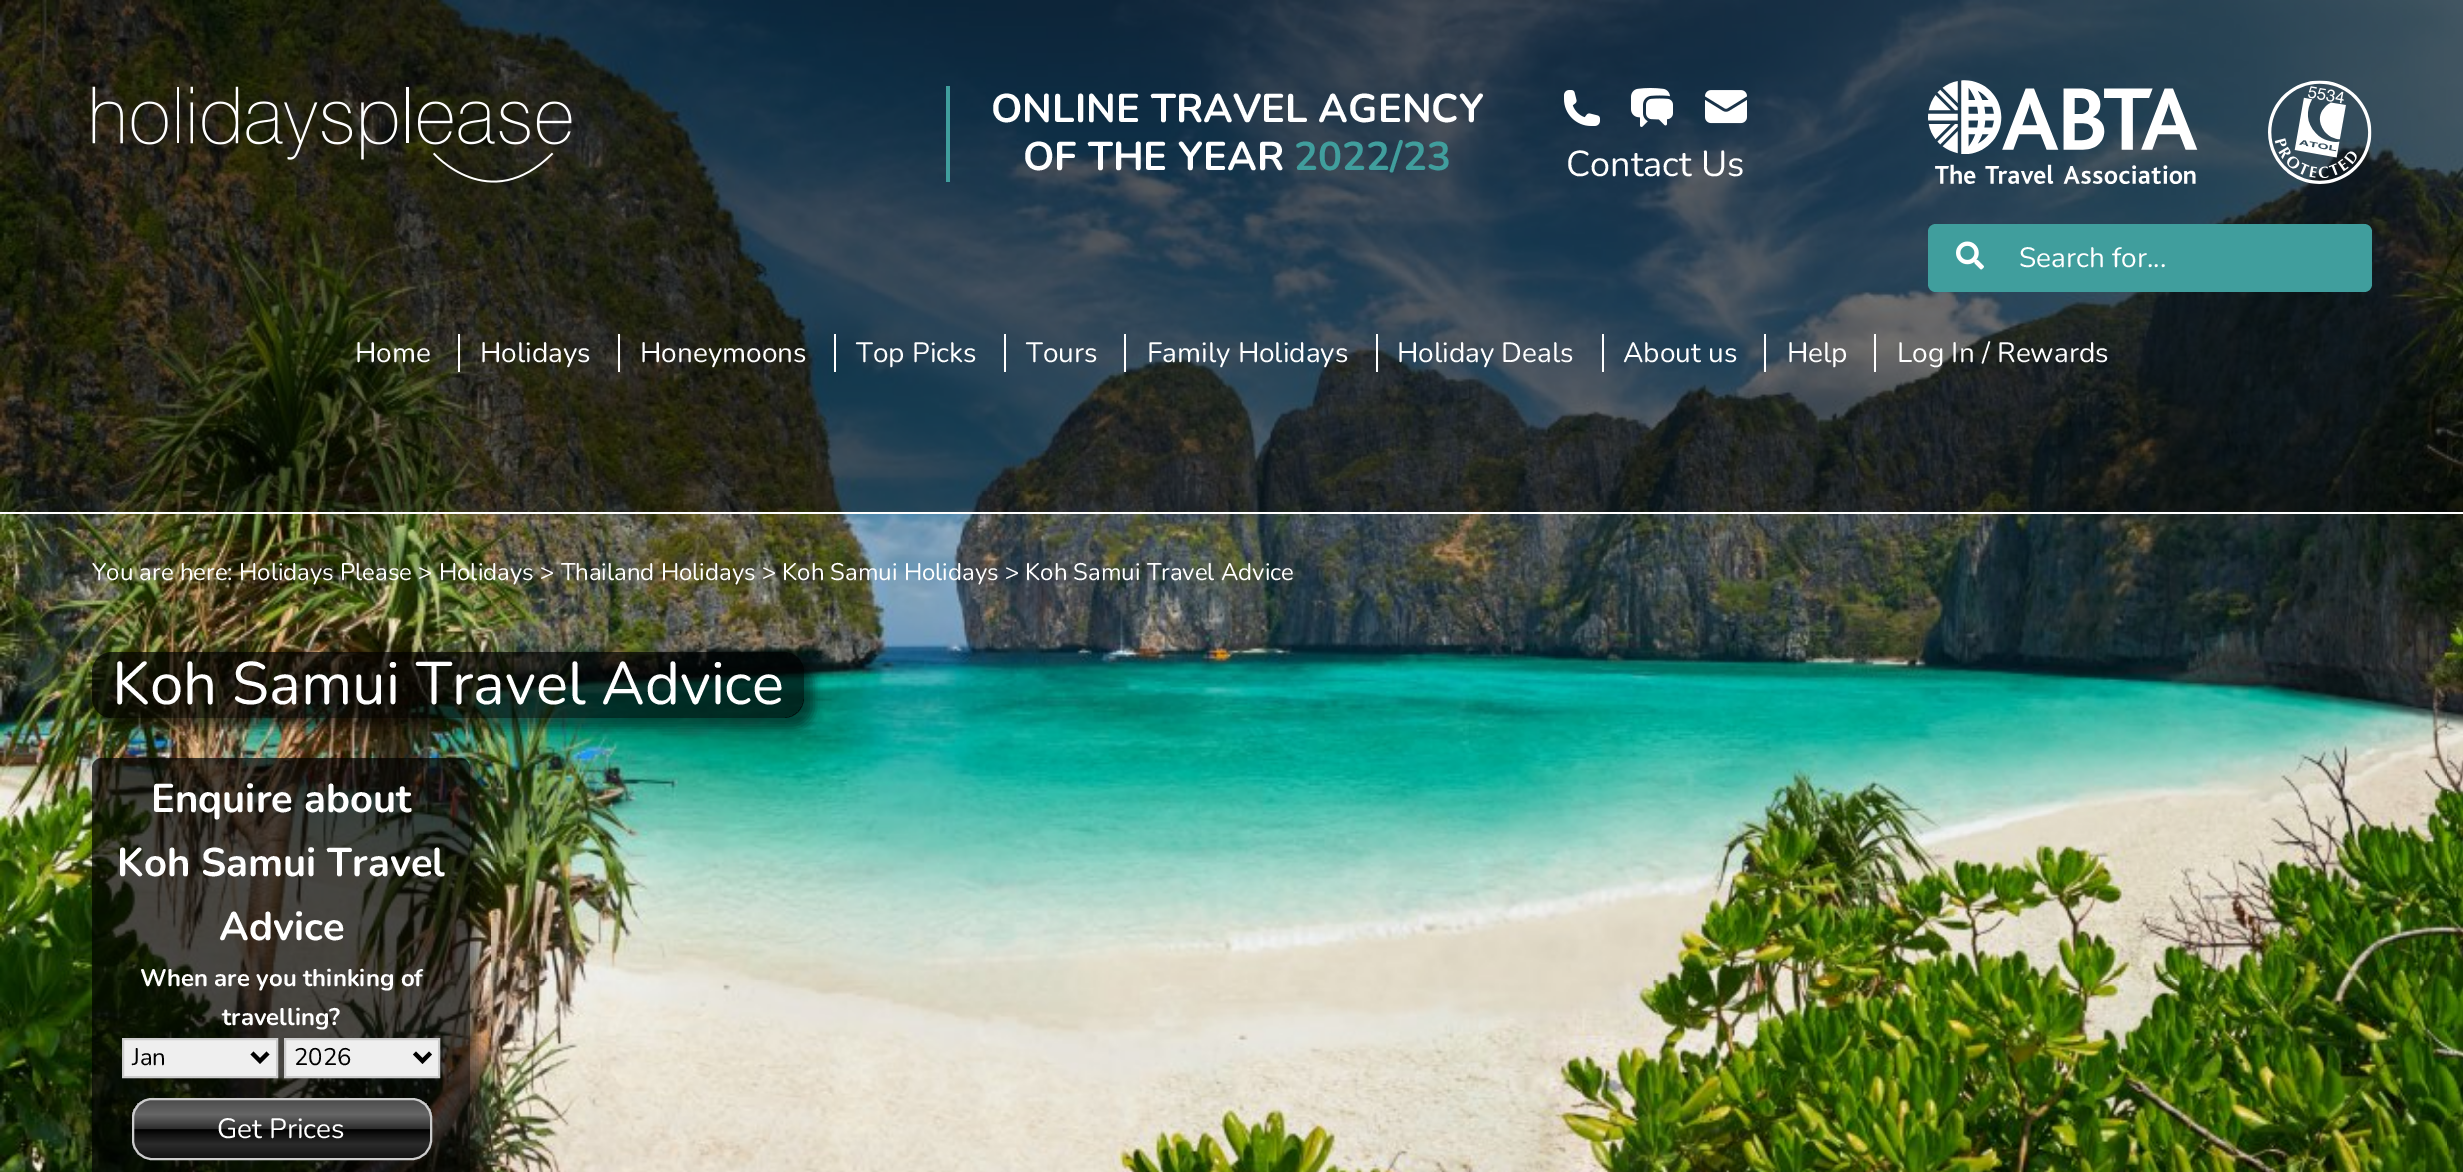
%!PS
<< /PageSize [2463 1172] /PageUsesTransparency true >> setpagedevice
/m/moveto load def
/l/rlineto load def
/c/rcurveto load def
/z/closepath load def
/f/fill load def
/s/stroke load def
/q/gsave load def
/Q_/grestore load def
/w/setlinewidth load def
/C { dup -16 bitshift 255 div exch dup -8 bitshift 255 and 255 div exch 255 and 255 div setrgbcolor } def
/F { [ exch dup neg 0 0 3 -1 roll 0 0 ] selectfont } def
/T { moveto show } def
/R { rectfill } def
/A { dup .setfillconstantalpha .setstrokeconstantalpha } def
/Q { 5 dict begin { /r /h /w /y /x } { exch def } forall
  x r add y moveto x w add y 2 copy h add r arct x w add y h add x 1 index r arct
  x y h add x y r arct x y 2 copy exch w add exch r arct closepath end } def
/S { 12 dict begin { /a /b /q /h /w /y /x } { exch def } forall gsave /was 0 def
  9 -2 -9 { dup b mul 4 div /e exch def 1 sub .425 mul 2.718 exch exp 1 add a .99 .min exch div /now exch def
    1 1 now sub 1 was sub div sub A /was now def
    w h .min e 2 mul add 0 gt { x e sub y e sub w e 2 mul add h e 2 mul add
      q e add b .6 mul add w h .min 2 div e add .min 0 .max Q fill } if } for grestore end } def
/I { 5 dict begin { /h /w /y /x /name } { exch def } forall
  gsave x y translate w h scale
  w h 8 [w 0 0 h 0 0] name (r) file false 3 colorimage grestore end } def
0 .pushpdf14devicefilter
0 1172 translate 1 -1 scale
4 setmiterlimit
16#FFFFFF C
0 0 2463 1172 R
(1.rgb) 0 0 2463 1172 I
0.5 A
16#000000 C
0 0 2463 512 R
1 A
16#FFFFFF C
0 512 2463 2 R
(2.rgb) 92 86 480 97 I
16#409E9D C
946 86 4 96 R
/Nunito-Bold 40 F
16#FFFFFF C
(ONLINE TRAVEL AGENCY) 991 122 T
(OF THE YEAR) 1023 170 T
16#409E9D C
(2022/23) 1294 170 T
(3.rgb) 1564 88 183 39 I
/Nunito-Regular 36 F
16#FFFFFF C
(Contact Us) 1566 176 T
(4.rgb) 1928 80 270 104 I
(5.rgb) 2268 80 104 104 I
0.07 A
16#000000 C
1928 224 444 2 R
1 A
16#409E9D C
1936 224 m 62 0 l 0 68 l -62 0 l -4.5 0 -8 -3.5 -8 -8 c 0 -52 l 0 -4.5 3.5 -8 8 -8 c z f
(6.rgb) 1956 241 28 29 I
1996 224 m 368 0 l 4.5 0 8 3.5 8 8 c 0 52 l 0 4.5 -3.5 8 -8 8 c -368 0 l z f
/Nunito-Regular 28 F
16#FFFFFF C
(Search for...) 2019 267 T
(Home) 355 362 T
458 334 2 38 R
(Holidays) 480 362 T
618 334 2 38 R
(Honeymoons) 640 362 T
834 334 2 38 R
(Top Picks) 856 362 T
1004 334 2 38 R
(Tours) 1026 362 T
1124 334 2 38 R
(Family Holidays) 1147 362 T
1376 334 2 38 R
(Holiday Deals) 1397 362 T
1602 334 2 38 R
(About us) 1623 362 T
1764 334 2 38 R
(Help) 1787 362 T
1874 334 2 38 R
(Log In / Rewards) 1897 362 T
/Nunito-Regular 24 F
(You are here: Holidays Please > Holidays > Thailand Holidays > Koh Samui Holidays > Koh Samui Travel Advice) 92 580 T
q
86 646 m 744 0 l 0 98 l -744 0 l z 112 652 m 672 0 l 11 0 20 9 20 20 c 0 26 l 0 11 -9 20 -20 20 c -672 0 l -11 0 -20 -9 -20 -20 c 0 -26 l 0 -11 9 -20 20 -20 c z eoclip newpath
16#000000 C
102 662 712 66 20 5 .5 S
Q_
0.7 A
16#000000 C
92 652 712 66 20 Q f
/Nunito-Regular 60 F
1 A
16#FFFFFF C
(Koh Samui Travel Advice) 112 704 T
q
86 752 m 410 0 l 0 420 l -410 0 l z 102 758 m 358 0 l 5.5 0 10 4.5 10 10 c 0 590 l 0 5.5 -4.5 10 -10 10 c -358 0 l -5.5 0 -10 -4.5 -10 -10 c 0 -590 l 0 -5.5 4.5 -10 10 -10 c z eoclip newpath
16#000000 C
102 768 378 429 10 5 .5 S
Q_
0.7 A
16#000000 C
92 758 378 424 10 Q f
/Nunito-Bold 40 F
1 A
16#FFFFFF C
(Enquire about) 151 812 T
(Koh Samui Travel) 117 876 T
(Advice) 219 940 T
/Nunito-Bold 24 F
(When are you thinking of) 140 986 T
(travelling?) 222 1025 T
16#EFEFEF C
123 1039 m 154 0 l 0 38 l -154 0 l z q f Q_
16#CCCCCC C
2 w
s
16#000000 C
4 w
252 1053 m 8 8 l 8 -8 l s
/Nunito-Regular 24 F
(Jan) 132 1065 T
16#EFEFEF C
285 1039 m 154 0 l 0 38 l -154 0 l z q f Q_
16#CCCCCC C
2 w
s
16#000000 C
4 w
414.5 1053 m 8 8 l 8 -8 l s
(2026) 294 1065 T
q
132 1098 300 62 20 Q clip newpath
q 132 1100 m 300 0 l 0 58 l -300 0 l z clip newpath
<< /ShadingType 2 /ColorSpace /DeviceRGB /Coords [282 1100 282 1158] /Extend [true true] /Function << /FunctionType 3 /Domain [0 1] /Functions [<< /FunctionType 2 /Domain [0 1] /C0 [.298 .298 .298] /C1 [.349 .349 .349] /N 1 >> << /FunctionType 2 /Domain [0 1] /C0 [.349 .349 .349] /C1 [.4 .4 .4] /N 1 >> << /FunctionType 2 /Domain [0 1] /C0 [.4 .4 .4] /C1 [.278 .278 .278] /N 1 >> << /FunctionType 2 /Domain [0 1] /C0 [.278 .278 .278] /C1 [.173 .173 .173] /N 1 >> << /FunctionType 2 /Domain [0 1] /C0 [.173 .173 .173] /C1 [0 0 0] /N 1 >> << /FunctionType 2 /Domain [0 1] /C0 [0 0 0] /C1 [.067 .067 .067] /N 1 >> << /FunctionType 2 /Domain [0 1] /C0 [.067 .067 .067] /C1 [.169 .169 .169] /N 1 >> << /FunctionType 2 /Domain [0 1] /C0 [.169 .169 .169] /C1 [.11 .11 .11] /N 1 >> << /FunctionType 2 /Domain [0 1] /C0 [.11 .11 .11] /C1 [.075 .075 .075] /N 1 >>] /Bounds [.12 .25 .39 .5 .51 .6 .76 .91] /Encode [0 1 0 1 0 1 0 1 0 1 0 1 0 1 0 1 0 1] >> >> shfill Q_
Q_
16#CCCCCC C
2 w
133 1099 298 60 19 Q s
/Nunito-Regular 28 F
16#FFFFFF C
(Get Prices) 217 1138 T
.poppdf14devicefilter showpage
